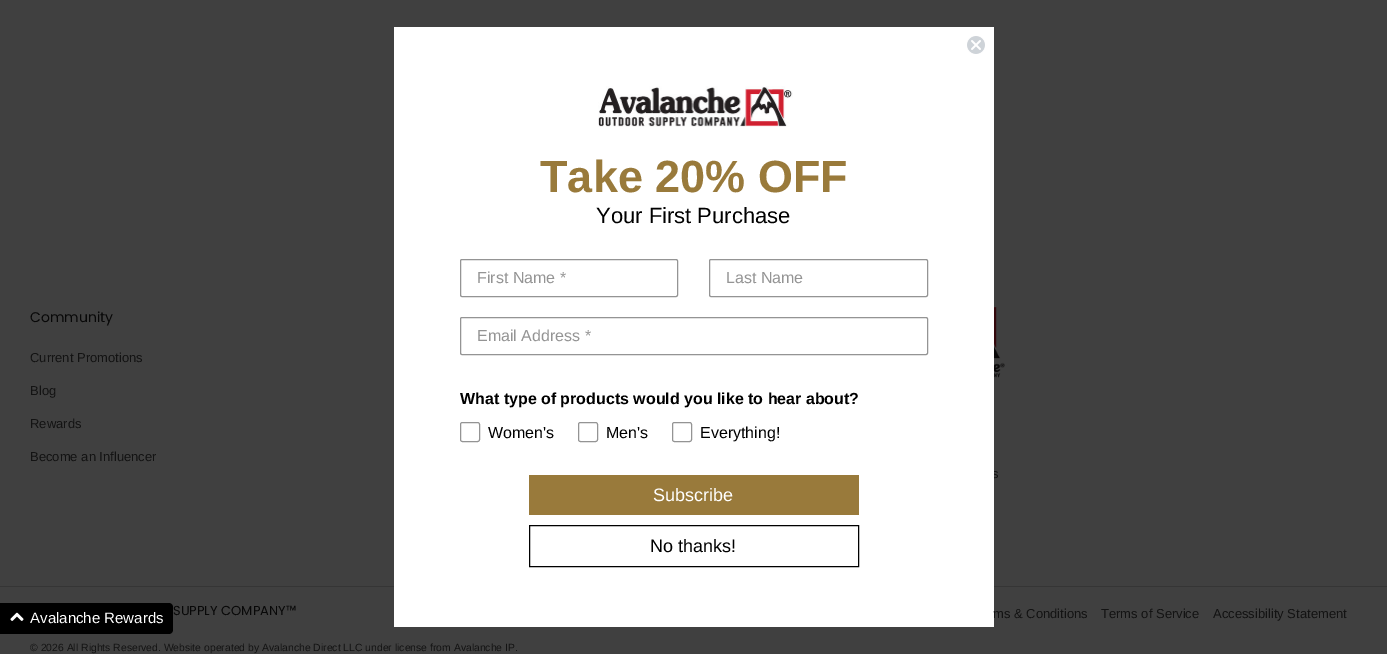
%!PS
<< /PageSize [1387 654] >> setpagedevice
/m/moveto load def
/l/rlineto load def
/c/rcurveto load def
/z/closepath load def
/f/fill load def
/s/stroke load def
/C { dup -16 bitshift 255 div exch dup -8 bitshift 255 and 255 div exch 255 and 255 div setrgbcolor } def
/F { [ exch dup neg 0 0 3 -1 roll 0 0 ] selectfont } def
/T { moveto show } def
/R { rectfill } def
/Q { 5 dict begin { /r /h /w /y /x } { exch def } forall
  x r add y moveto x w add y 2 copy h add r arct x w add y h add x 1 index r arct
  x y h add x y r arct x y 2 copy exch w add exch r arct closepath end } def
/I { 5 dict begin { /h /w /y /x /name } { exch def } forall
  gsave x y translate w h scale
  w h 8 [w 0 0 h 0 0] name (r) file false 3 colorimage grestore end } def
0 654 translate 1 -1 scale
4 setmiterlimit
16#404040 C
0 0 1387 654 R
/LiberationSans-Regular 13 F
16#131313 C
(s) 992 478 T
16#353535 C
0 586 1387 1 R
16#FFFFFF C
394 27 600 600 R
(1.rgb) 967 36 18 18 I
(2.rgb) 598 86 195 41 I
/LiberationSans-Bold 45 F
16#997A3B C
(Take 20% OFF) 540 192 T
/LiberationSans-Regular 22 F
16#000000 C
(Your First Purchase) 596 223 T
16#949494 C
460.5 259.5 217 37 1.5 Q s
/LiberationSans-Regular 16 F
(First Name *) 477 283 T
709.5 259.5 218 37 1.5 Q s
(Last Name) 726 283 T
460.5 317.5 467 37 1.5 Q s
(Email Address *) 477 341 T
/LiberationSans-Bold 16 F
16#000000 C
(What type of products would you like to hear about?) 460 404 T
16#949494 C
460.5 422.5 19 19 2 Q s
/LiberationSans-Regular 16 F
16#000000 C
(Women's) 488 438 T
16#949494 C
578.5 422.5 19 19 2 Q s
16#000000 C
(Men's) 606 438 T
16#949494 C
672.5 422.5 19 19 2 Q s
16#000000 C
(Everything!) 700 438 T
16#997A3B C
529 475 330 40 R
/LiberationSans-Regular 18 F
16#FFFFFF C
(Subscribe) 653 501 T
16#000000 C
529.5 525.5 329 41 rectstroke
(No thanks!) 650 552 T
/Poppins-Regular 14 F
16#080808 C
(Community) 30 322 T
/LiberationSans-Regular 13 F
16#131313 C
(Current Promotions) 30 362 T
(Blog) 30 395 T
(Rewards) 30 428 T
(Become an Influencer) 30 461 T
(3.rgb) 994 307 11 71 I
/Poppins-Regular 13 F
16#080808 C
(SUPPLY COMPANY™) 173 615 T
/LiberationSans-Regular 10.4 F
16#131313 C
(© 2026 All Rights Reserved. Website operated by Avalanche Direct LLC under license from Avalanche IP.) 30 651 T
/LiberationSans-Regular 13 F
(ms & Conditions) 993 618 T
(Terms of Service) 1101 618 T
(Accessibility Statement) 1213 618 T
16#000000 C
0 603 m 169 0 l 2 0 4 2 4 4 c 0 23 l 0 2 -2 4 -4 4 c -169 0 l z f
(4.rgb) 10 612 14 9 I
/LiberationSans-Regular 15 F
16#FFFFFF C
(Avalanche Rewards) 30 623 T
showpage
